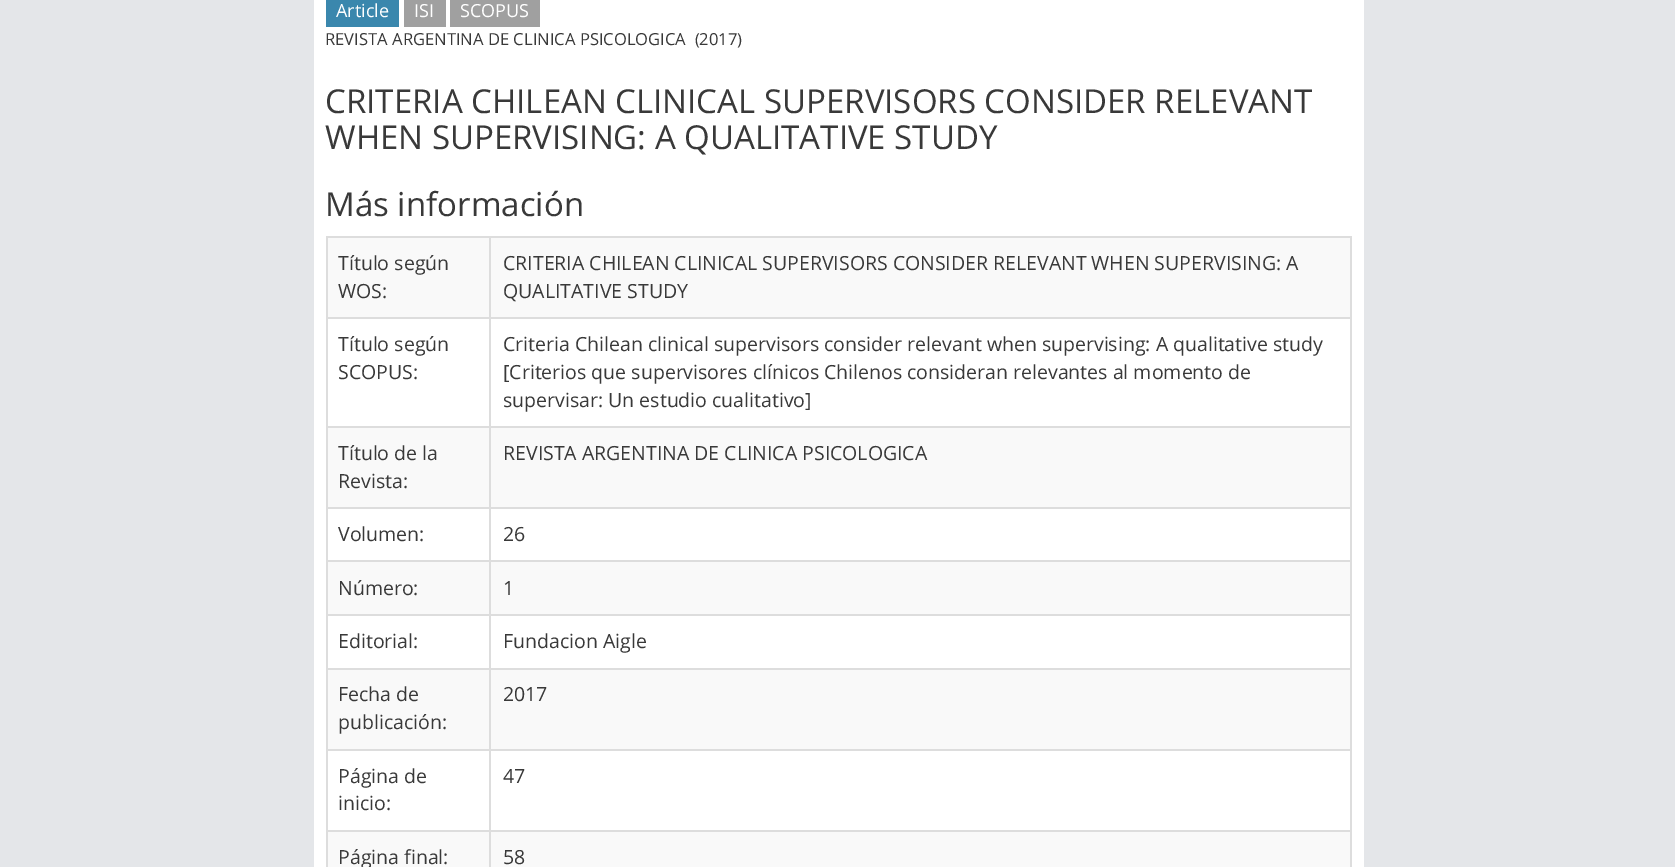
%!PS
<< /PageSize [1675 867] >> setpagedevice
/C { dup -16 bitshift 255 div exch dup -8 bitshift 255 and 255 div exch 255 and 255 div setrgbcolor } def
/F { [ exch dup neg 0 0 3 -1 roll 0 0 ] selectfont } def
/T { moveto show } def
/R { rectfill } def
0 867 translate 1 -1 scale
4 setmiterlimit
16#E4E6E9 C
0 0 1675 867 R
16#FFFFFF C
314 0 1050 867 R
16#3A87AD C
326 0 73 27 R
/OpenSans-Regular 18 F
16#FFFFFF C
(Article) 336 17 T
16#A0A0A0 C
404 0 42 27 R
16#FFFFFF C
(ISI) 414 17 T
16#A0A0A0 C
450 0 90 27 R
16#FFFFFF C
(SCOPUS) 460 17 T
/OpenSans-Regular 16.6 F
16#393939 C
(REVISTA ARGENTINA DE CLINICA PSICOLOGICA  \(2017\)) 325 45 T
/OpenSans-Regular 33 F
(CRITERIA CHILEAN CLINICAL SUPERVISORS CONSIDER RELEVANT) 325 113 T
(WHEN SUPERVISING: A QUALITATIVE STUDY) 325 149 T
(Más información) 325 216 T
16#DDDDDD C
326 236 1026 2 R
1350 236 2 631 R
326 236 2 631 R
16#F9F9F9 C
328 238 1022 79 R
/OpenSans-Regular 19.5 F
16#393939 C
(Título según) 338 270 T
(WOS:) 338 298 T
16#DDDDDD C
489 317 863 2 R
489 426 863 2 R
16#F9F9F9 C
328 428 1022 79 R
16#DDDDDD C
489 507 863 2 R
489 560 863 2 R
16#F9F9F9 C
328 562 1022 52 R
16#DDDDDD C
489 614 863 2 R
489 668 863 2 R
16#F9F9F9 C
328 670 1022 79 R
16#DDDDDD C
489 749 863 2 R
489 830 863 2 R
16#F9F9F9 C
328 832 1022 35 R
16#DDDDDD C
489 830 2 37 R
326 830 165 2 R
489 749 2 82 R
326 749 165 2 R
489 668 2 82 R
326 668 165 2 R
489 614 2 55 R
326 614 165 2 R
489 560 2 55 R
326 560 165 2 R
489 507 2 54 R
326 507 165 2 R
489 426 2 83 R
326 426 165 2 R
489 317 2 111 R
326 317 165 2 R
489 236 2 82 R
16#393939 C
(CRITERIA CHILEAN CLINICAL SUPERVISORS CONSIDER RELEVANT WHEN SUPERVISING: A) 503 270 T
(QUALITATIVE STUDY) 503 298 T
(Título según) 338 351 T
(SCOPUS:) 338 379 T
(Criteria Chilean clinical supervisors consider relevant when supervising: A qualitative study) 503 351 T
([Criterios que supervisores clínicos Chilenos consideran relevantes al momento de) 503 379 T
(supervisar: Un estudio cualitativo]) 503 407 T
(Título de la) 338 460 T
(Revista:) 338 488 T
(REVISTA ARGENTINA DE CLINICA PSICOLOGICA) 503 460 T
(Volumen:) 338 541 T
(26) 503 541 T
(Número:) 338 595 T
(1) 503 595 T
(Editorial:) 338 648 T
(Fundacion Aigle) 503 648 T
(Fecha de) 338 701 T
(publicación:) 338 729 T
(2017) 503 701 T
(Página de) 338 783 T
(inicio:) 338 810 T
(47) 503 783 T
(Página final:) 338 864 T
(58) 503 864 T
showpage
